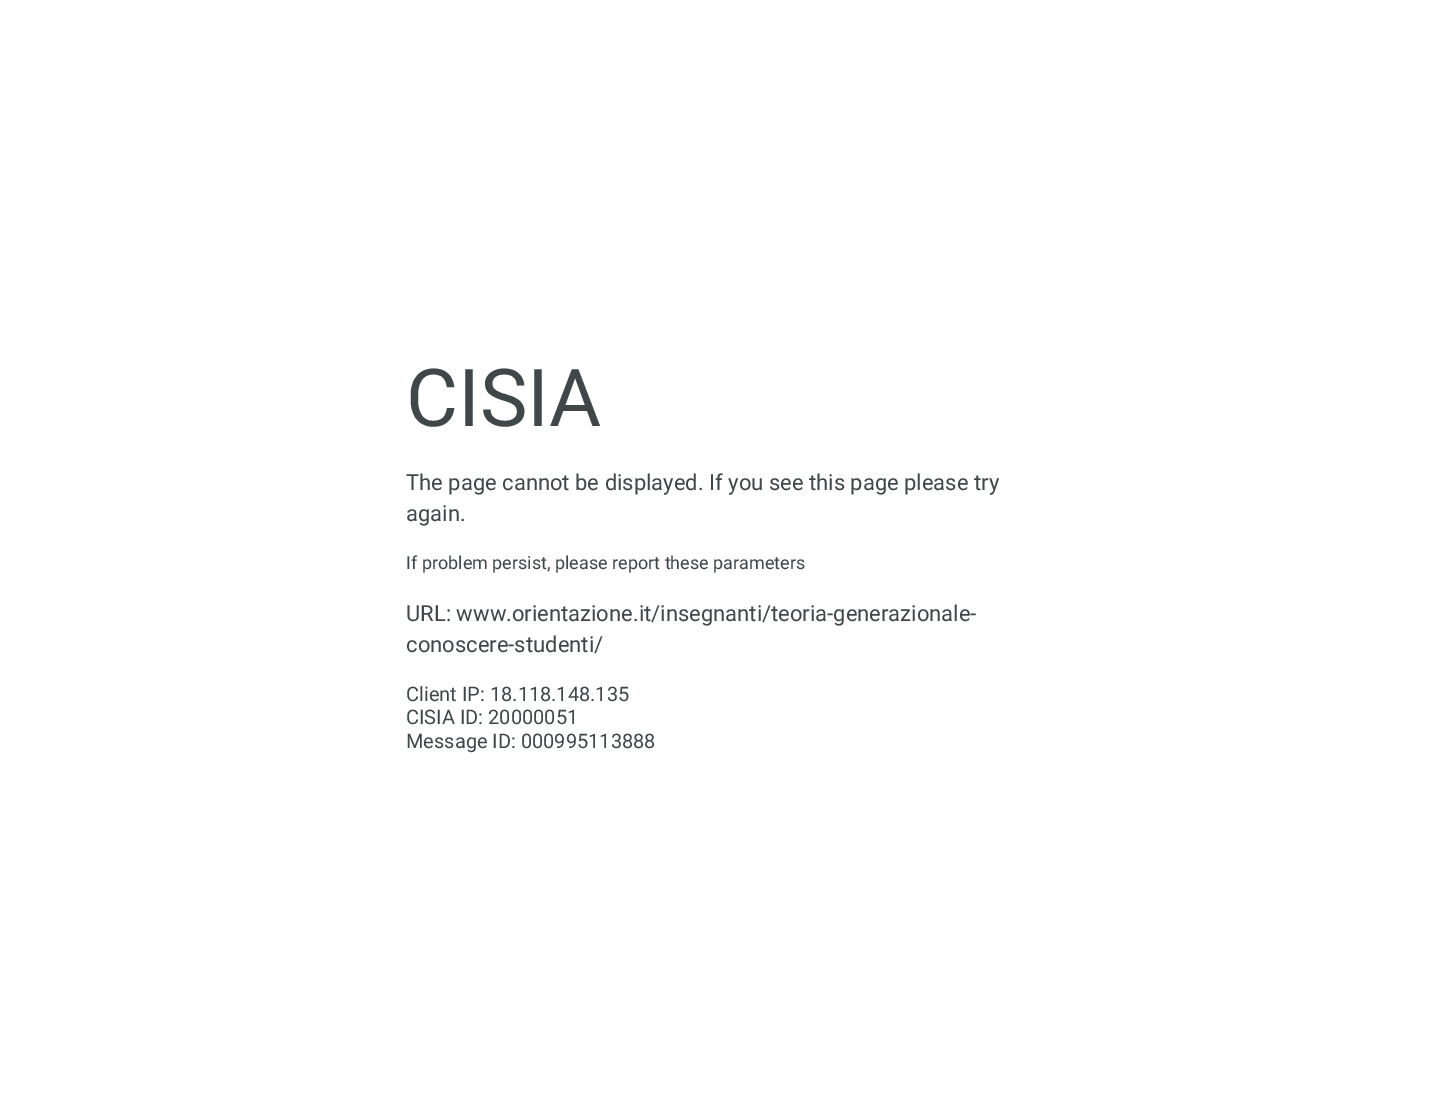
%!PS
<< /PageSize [1436 1105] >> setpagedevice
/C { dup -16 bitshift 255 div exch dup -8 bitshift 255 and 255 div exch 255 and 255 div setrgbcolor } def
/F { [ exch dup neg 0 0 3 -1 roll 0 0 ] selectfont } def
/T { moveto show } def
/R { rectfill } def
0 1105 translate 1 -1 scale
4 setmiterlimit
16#FFFFFF C
0 0 1436 1105 R
/Roboto-Regular 80 F
16#404749 C
(CISIA) 406 426 T
/Roboto-Regular 22 F
(The page cannot be displayed. If you see this page please try) 406 490 T
(again.) 406 521 T
/Roboto-Regular 18 F
(If problem persist, please report these parameters) 406 569 T
/Roboto-Regular 22 F
(URL: www.orientazione.it/insegnanti/teoria-generazionale-) 406 621 T
(conoscere-studenti/) 406 652 T
/Roboto-Regular 20 F
(Client IP: 18.118.148.135) 406 701 T
(CISIA ID: 20000051) 406 724 T
(Message ID: 000995113888) 406 748 T
showpage
